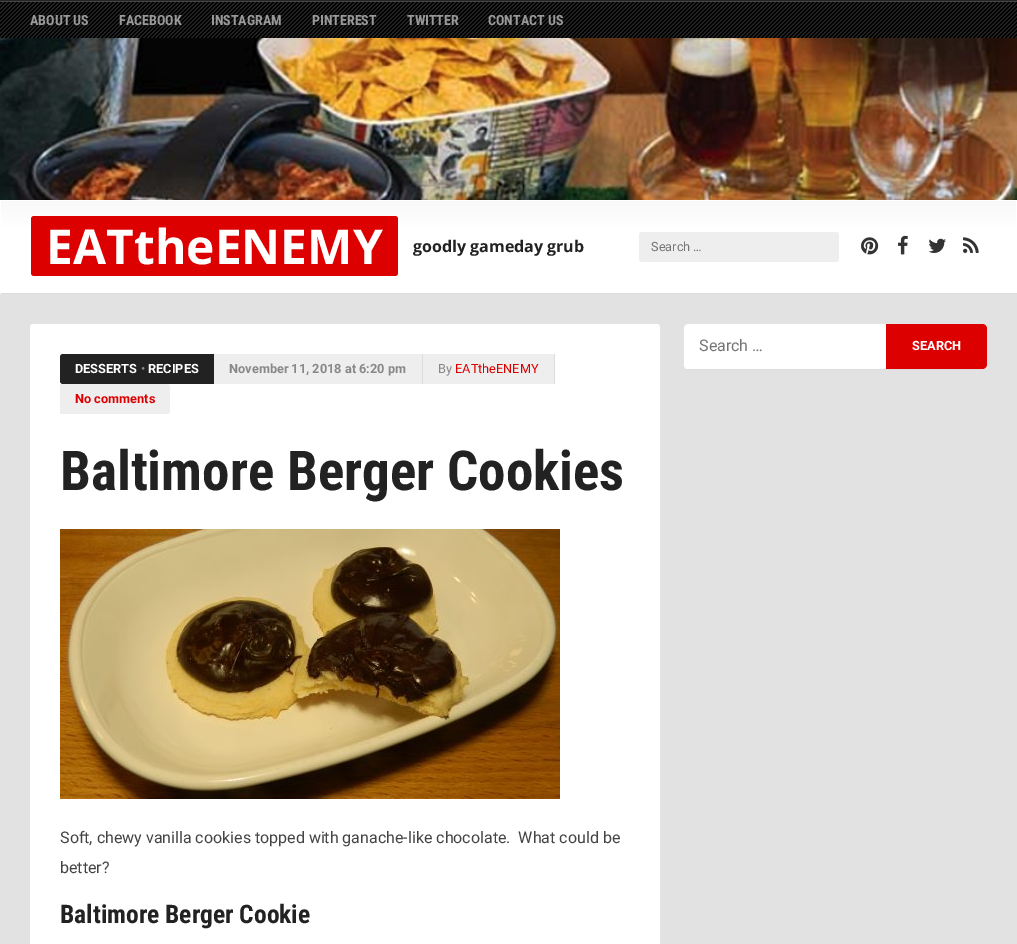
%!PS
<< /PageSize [1017 944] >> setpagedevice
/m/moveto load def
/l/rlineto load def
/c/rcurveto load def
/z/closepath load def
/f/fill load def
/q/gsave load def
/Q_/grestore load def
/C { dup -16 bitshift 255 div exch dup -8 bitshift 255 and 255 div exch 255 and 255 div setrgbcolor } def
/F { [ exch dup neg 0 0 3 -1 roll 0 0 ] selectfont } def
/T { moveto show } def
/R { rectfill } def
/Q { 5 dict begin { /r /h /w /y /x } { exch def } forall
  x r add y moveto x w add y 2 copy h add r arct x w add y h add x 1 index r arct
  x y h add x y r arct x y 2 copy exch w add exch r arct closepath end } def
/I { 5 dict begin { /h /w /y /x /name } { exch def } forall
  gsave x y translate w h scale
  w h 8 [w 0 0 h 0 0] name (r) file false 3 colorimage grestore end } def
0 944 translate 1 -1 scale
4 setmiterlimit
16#E2E2E2 C
0 0 1017 944 R
16#252525 C
0 0 1017 1 R
(1.rgb) 0 2 1017 36 I
16#444444 C
0 1 1017 1 R
/RobotoCondensed-Bold 14 F
16#999999 C
(ABOUT US) 30 25 T
(FACEBOOK) 119 25 T
(INSTAGRAM) 211 25 T
(PINTEREST) 312 25 T
(TWITTER) 407 25 T
(CONTACT US) 488 25 T
(2.rgb) 0 38 1017 162 I
16#FFFFFF C
1 200 1015 1 R
q 1 201 m 1015 0 l 0 92 l -1015 0 l z clip newpath
<< /ShadingType 2 /ColorSpace /DeviceRGB /Coords [509 201 509 293] /Extend [true true] /Function << /FunctionType 3 /Domain [0 1] /Functions [<< /FunctionType 2 /Domain [0 1] /C0 [.976 .976 .976] /C1 [1 1 1] /N 1 >> << /FunctionType 2 /Domain [0 1] /C0 [1 1 1] /C1 [1 1 1] /N 1 >>] /Bounds [.3] /Encode [0 1 0 1] >> >> shfill Q_
1016 200 1 94 R
16#DDDDDD C
0 293 1017 1 R
16#FFFFFF C
0 200 1 94 R
16#DD0000 C
31 216 367 60 3 Q f
/OpenSans-Bold 48 F
16#FFFFFF C
(EATtheENEMY) 46 264 T
/OpenSans-Bold 16 F
16#222222 C
(goodly gameday grub) 413 252 T
16#EEEEEE C
639 232 200 30 3 Q f
/Roboto-Regular 12.75 F
16#757575 C
(Search …) 651 251 T
(3.rgb) 861 237 18 18 I
(4.rgb) 898 235 10 20 I
(5.rgb) 928 238 18 15 I
(6.rgb) 963 237 16 16 I
(7.rgb) 684 324 303 46 I
16#DDDDDD C
687 369 298 1 R
16#FFFFFF C
689 324 m 195 0 l 1 0 2 1 2 2 c 0 41 l 0 1 -1 2 -2 2 c -195 0 l -3 0 -5 -2 -5 -5 c 0 -35 l 0 -3 2 -5 5 -5 c z f
/Roboto-Regular 16 F
16#757575 C
(Search …) 699 351 T
16#DD0000 C
886 324 m 96 0 l 3 0 5 2 5 5 c 0 35 l 0 3 -2 5 -5 5 c -96 0 l z f
/Roboto-Bold 12.75 F
16#FFFFFF C
(SEARCH) 912 350 T
30 324 630 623 3 Q f
16#222222 C
63 354 m 151 0 l 0 30 l -151 0 l -1.5 0 -3 -1.5 -3 -3 c 0 -24 l 0 -1.5 1.5 -3 3 -3 c z f
16#FFFFFF C
(DESSERTS) 75 373 T
/Roboto-Regular 12.75 F
16#888888 C
(•) 141 373 T
/Roboto-Bold 12.75 F
16#FFFFFF C
(RECIPES) 148 373 T
16#EEEEEE C
214 354 208 30 R
16#DDDDDD C
422 354 1 30 R
16#888888 C
(November 11, 2018 at 6:20 pm) 229 373 T
16#EEEEEE C
423 354 131 30 R
16#DDDDDD C
554 354 1 30 R
/Roboto-Regular 12.75 F
16#888888 C
(By) 438 373 T
16#DD0000 C
(EATtheENEMY) 455 373 T
16#EEEEEE C
60 384 m 107 0 l 1.5 0 3 1.5 3 3 c 0 24 l 0 1.5 -1.5 3 -3 3 c -107 0 l z f
/Roboto-Bold 12.75 F
16#DD0000 C
(No comments) 75 403 T
/RobotoCondensed-Bold 55 F
16#222222 C
(Baltimore Berger Cookies) 60 490 T
(8.rgb) 60 529 500 270 I
/Roboto-Regular 16 F
16#444444 C
(Soft, chewy vanilla cookies topped with ganache-like chocolate.  What could be) 60 843 T
(better?) 60 873 T
/RobotoCondensed-Bold 25.5 F
16#222222 C
(Baltimore Berger Cookie) 60 923 T
showpage
